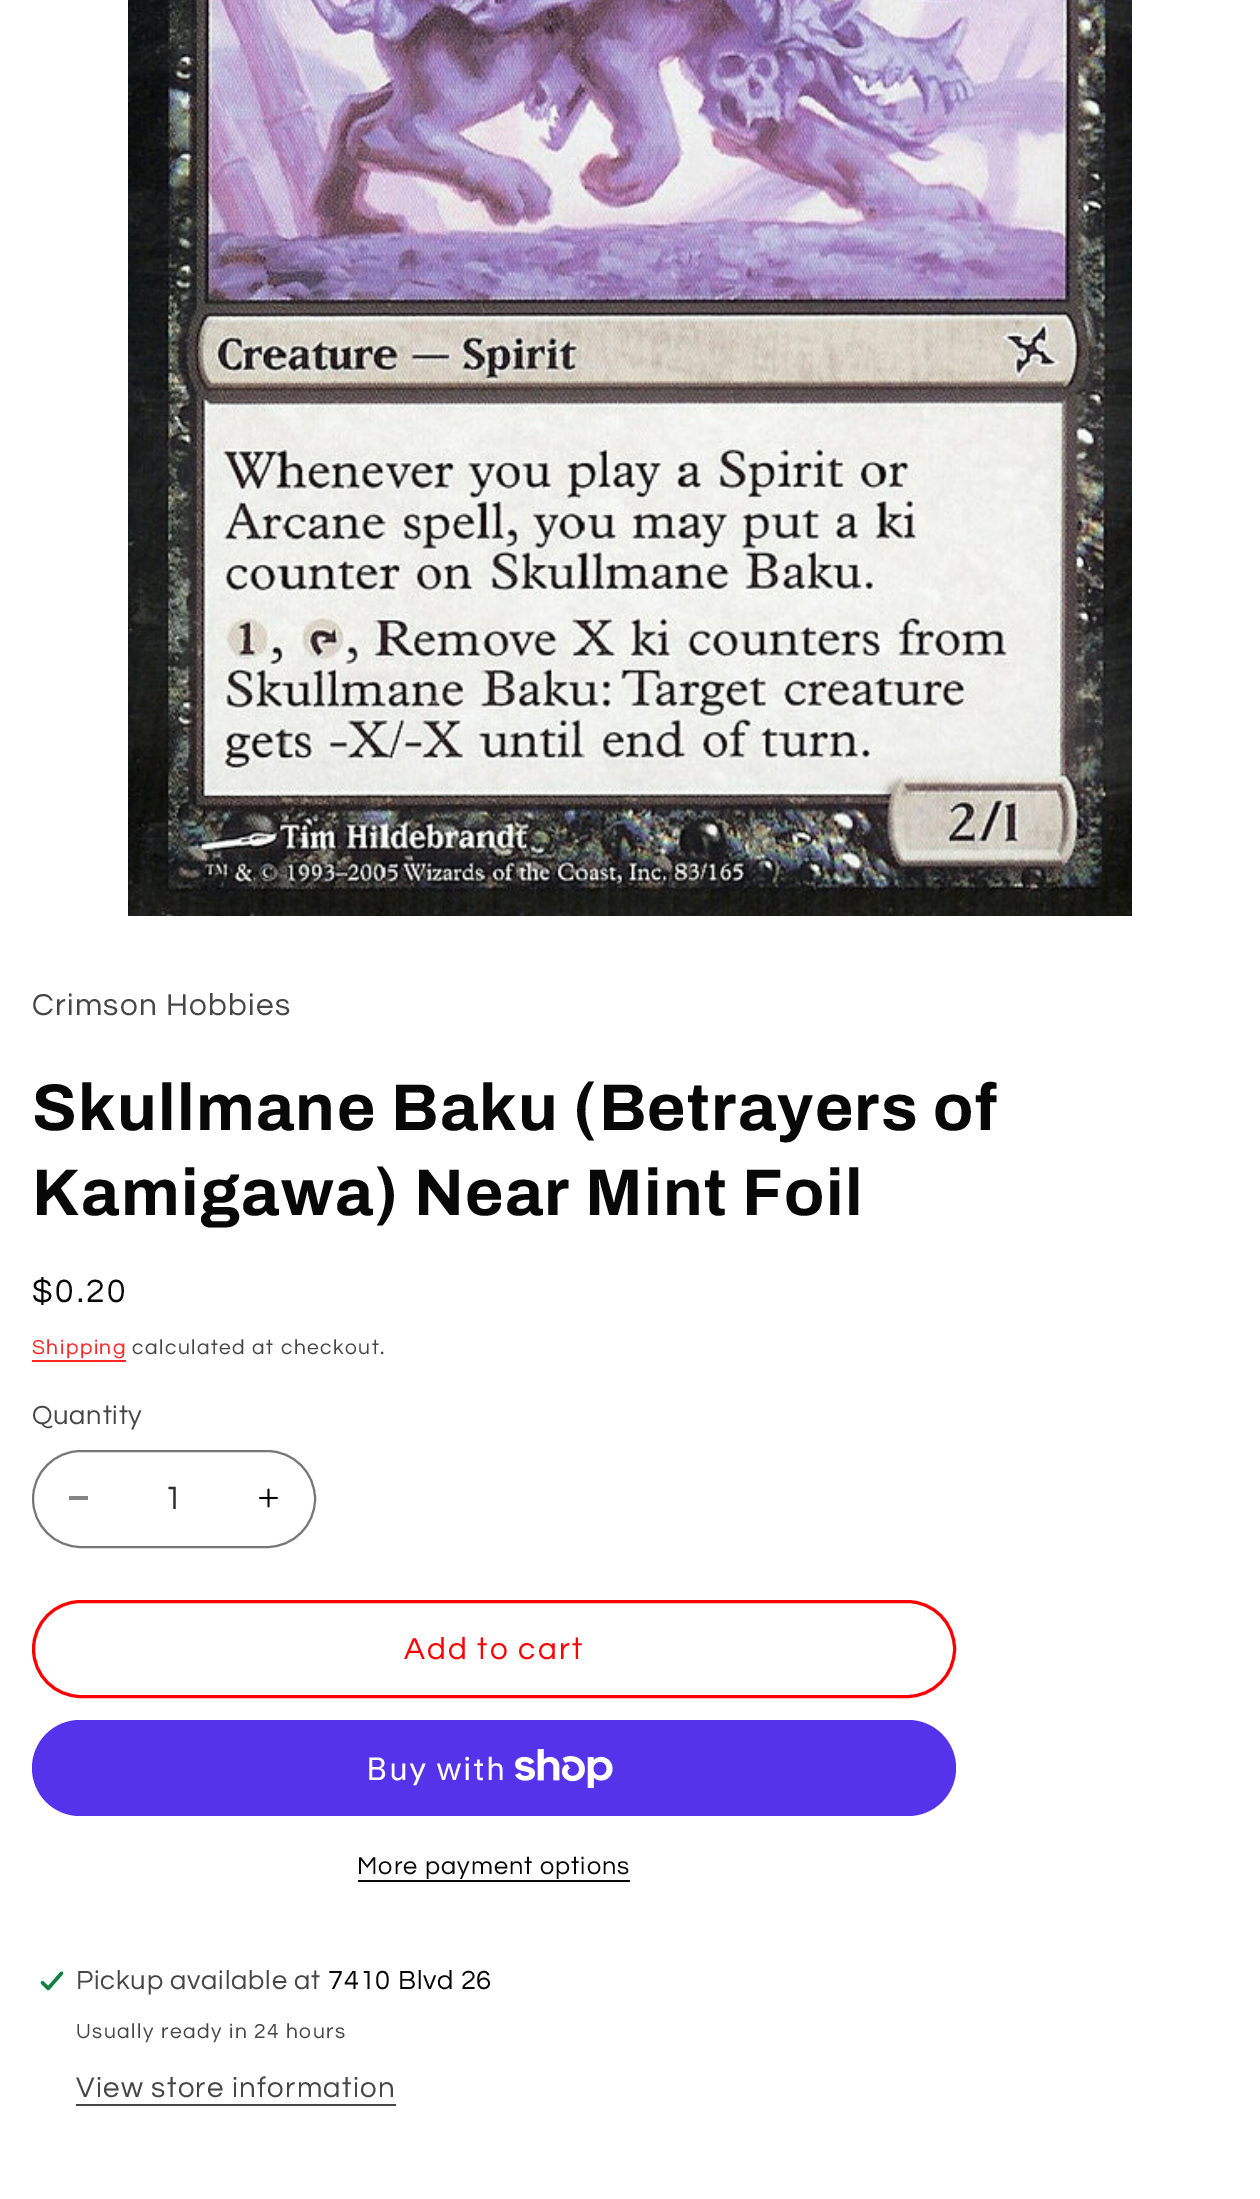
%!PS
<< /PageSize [1260 2199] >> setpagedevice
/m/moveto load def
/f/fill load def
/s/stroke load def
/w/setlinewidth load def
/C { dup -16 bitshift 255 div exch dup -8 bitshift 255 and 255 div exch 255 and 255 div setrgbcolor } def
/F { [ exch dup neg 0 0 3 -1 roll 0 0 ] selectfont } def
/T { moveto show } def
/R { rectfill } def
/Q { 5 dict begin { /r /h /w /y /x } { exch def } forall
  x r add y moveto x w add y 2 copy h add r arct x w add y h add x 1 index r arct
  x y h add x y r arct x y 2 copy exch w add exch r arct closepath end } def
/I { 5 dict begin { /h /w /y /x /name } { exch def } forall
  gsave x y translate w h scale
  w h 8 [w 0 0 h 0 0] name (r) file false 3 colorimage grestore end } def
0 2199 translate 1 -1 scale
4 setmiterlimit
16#FFFFFF C
0 0 1260 2199 R
(1.rgb) 128 0 1004 916 I
/Questrial-Regular 31.5 F
16#464646 C
32 1015 m 1.25 0 (Crimson Hobbies) ashow
/Archivo-Bold 66 F
16#080808 C
32 1130 m 1.3 0 (Skullmane Baku \(Betrayers of) ashow
32 1215 m 1.3 0 (Kamigawa\) Near Mint Foil) ashow
/Questrial-Regular 33.5 F
32 1302 m 2.75 0 ($0.20) ashow
/Questrial-Regular 21 F
16#FF2626 C
32 1354 m 1.5 0 (Shipping) ashow
32 1360 94 2 R
16#464646 C
132 1354 m 1.5 0 (calculated at checkout.) ashow
/Questrial-Regular 27.25 F
32 1424 m .8 0 (Quantity) ashow
16#848484 C
69 1496 19 4 R
(2.rgb) 259 1488 19 20 I
16#777777 C
2 w
33 1451 282 96 48 Q s
/Questrial-Regular 33.5 F
16#2D2D2D C
(1) 164 1509 T
16#FF0000 C
3 w
33.5 1601.5 921 95 47.5 Q s
/Questrial-Regular 31.5 F
404 1659 m 2.1 0 (Add to cart) ashow
16#5433EB C
32 1720 924 96 48 Q f
/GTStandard-Regular 32 F
16#FFFFFF C
366 1780 m 1.25 0 (Buy with) ashow
(3.rgb) 515 1749 98 39 I
/Questrial-Regular 25.25 F
16#080808 C
357 1874 m 1.05 0 (More payment options) ashow
358 1880 272 2 R
(4.rgb) 40 1971 24 20 I
/Questrial-Regular 27.25 F
16#464646 C
76 1989 m .8 0 (Pickup available at) ashow
16#080808 C
328 1989 m .8 0 (7410 Blvd 26) ashow
/Questrial-Regular 21 F
16#464646 C
76 2038 m 1.5 0 (Usually ready in 24 hours) ashow
/Questrial-Regular 29.4 F
76 2097 m 1.25 0 (View store information) ashow
76 2104 320 2 R
showpage
